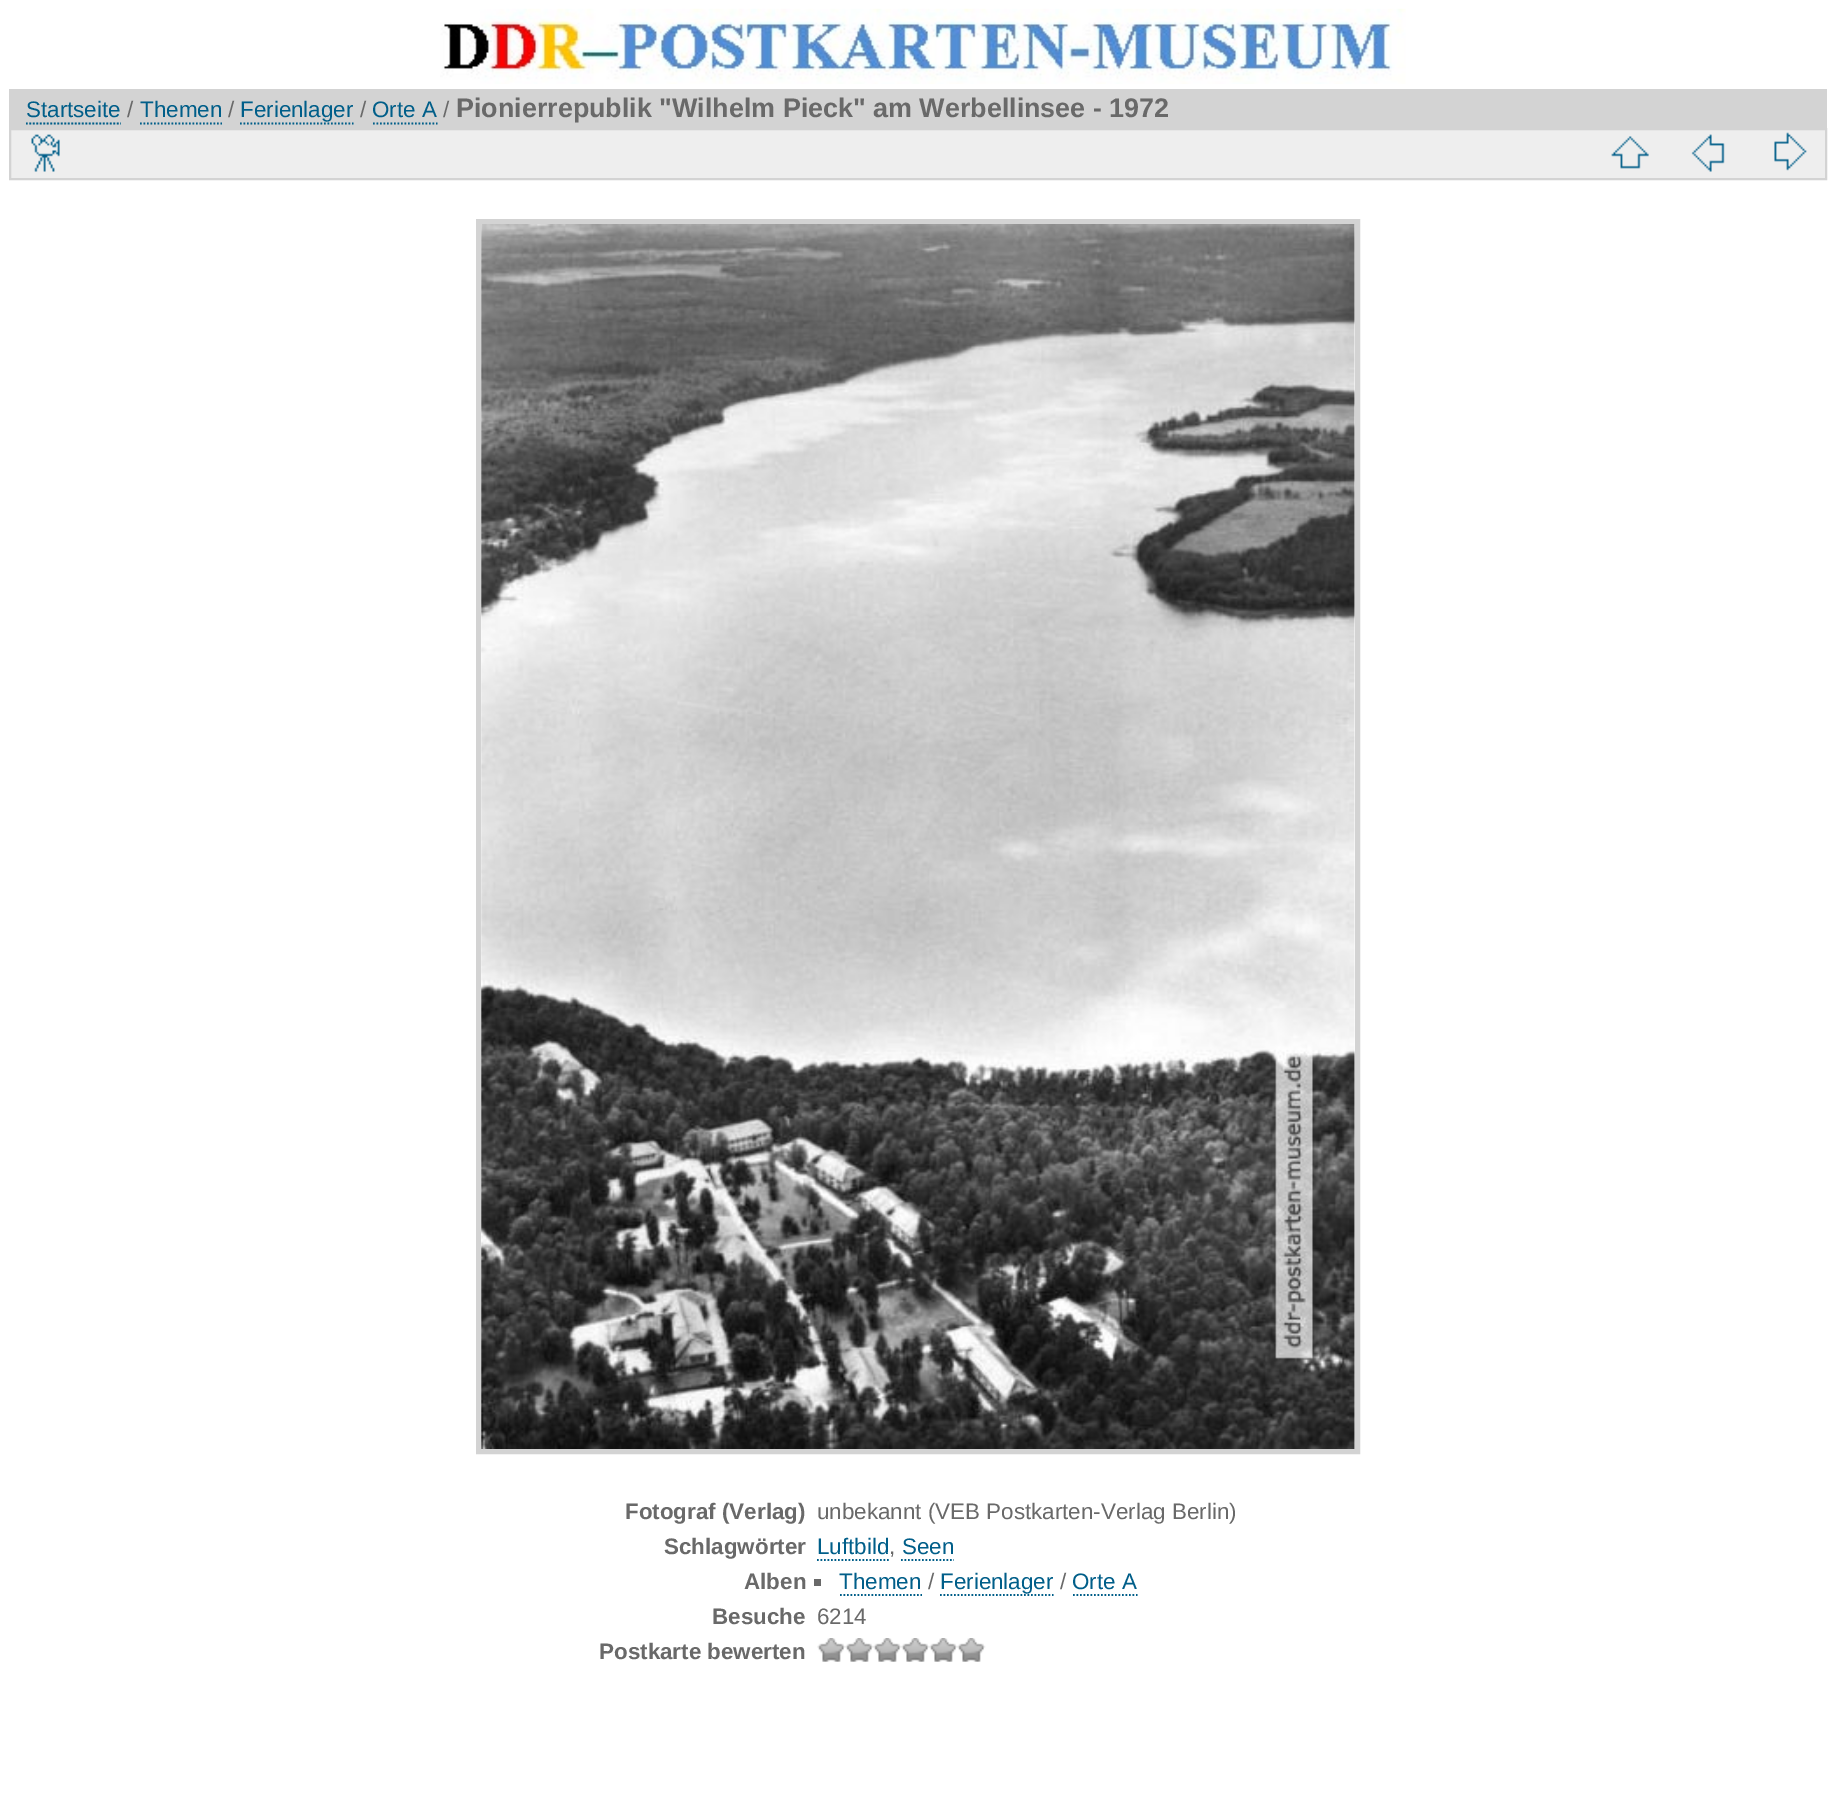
%!PS
<< /PageSize [1835 1796] >> setpagedevice
/m/moveto load def
/l/rlineto load def
/z/closepath load def
/f/fill load def
/s/stroke load def
/q/gsave load def
/Q_/grestore load def
/w/setlinewidth load def
/C { dup -16 bitshift 255 div exch dup -8 bitshift 255 and 255 div exch 255 and 255 div setrgbcolor } def
/F { [ exch dup neg 0 0 3 -1 roll 0 0 ] selectfont } def
/T { moveto show } def
/R { rectfill } def
/I { 5 dict begin { /h /w /y /x /name } { exch def } forall
  gsave x y translate w h scale
  w h 8 [w 0 0 h 0 0] name (r) file false 3 colorimage grestore end } def
0 1796 translate 1 -1 scale
4 setmiterlimit
16#FFFFFF C
0 0 1835 1796 R
(1.rgb) 440 8 966 76 I
16#D3D3D3 C
9 89 1818 39 R
/LiberationSans-Regular 22.4 F
16#005E89 C
(Startseite) 26 117 T
1.8 w
[1.75 1.75] 0 setdash
26 123.5 m 95 0 l s
16#696969 C
(/) 127 117 T
16#005E89 C
(Themen) 140 117 T
140 123.5 m 82 0 l s
16#696969 C
(/) 228 117 T
16#005E89 C
(Ferienlager) 240 117 T
240 123.5 m 113.5 0 l s
16#696969 C
(/) 360 117 T
16#005E89 C
(Orte A) 372 117 T
373 123.5 m 64.5 0 l s
16#696969 C
(/) 443 117 T
/LiberationSans-Bold 26.9 F
(Pionierrepublik "Wilhelm Pieck" am Werbellinsee - 1972) 456 117 T
16#EEEEEE C
10 129 m 1816 0 l 0 50 l -1816 0 l z q f Q_
16#D3D3D3 C
2 w
[] 0 setdash
s
(2.rgb) 31 134 29 38 I
(3.rgb) 1611 136 38 33 I
(4.rgb) 1691 134 34 38 I
(5.rgb) 1774 132 33 39 I
5 w
478.5 221.5 879 1230 rectstroke
(6.rgb) 481 224 874 1225 I
/LiberationSans-Bold 22.4 F
16#696969 C
(Fotograf \(Verlag\)) 625 1519 T
/LiberationSans-Regular 22.4 F
(unbekannt \(VEB Postkarten-Verlag Berlin\)) 817 1519 T
/LiberationSans-Bold 22.4 F
(Schlagwörter) 664 1554 T
/LiberationSans-Regular 22.4 F
16#005E89 C
(Luftbild) 817 1554 T
1.8 w
[1.75 1.75] 0 setdash
817 1560 m 72 0 l s
16#696969 C
(,) 889 1554 T
16#005E89 C
(Seen) 902 1554 T
901 1560 m 53 0 l s
/LiberationSans-Bold 22.4 F
16#696969 C
(Alben) 744 1589 T
814 1579 7 7 R
/LiberationSans-Regular 22.4 F
16#005E89 C
(Themen) 839 1589 T
840 1595 m 82 0 l s
16#696969 C
(/) 928 1589 T
16#005E89 C
(Ferienlager) 940 1589 T
940 1595 m 113.5 0 l s
16#696969 C
(/) 1060 1589 T
16#005E89 C
(Orte A) 1072 1589 T
1073 1595 m 64.5 0 l s
/LiberationSans-Bold 22.4 F
16#696969 C
(Besuche) 712 1624 T
/LiberationSans-Regular 22.4 F
(6214) 817 1624 T
/LiberationSans-Bold 22.4 F
(Postkarte bewerten) 599 1659 T
(7.rgb) 817 1638 29 24 I
(8.rgb) 845 1638 29 24 I
(8.rgb) 873 1638 29 24 I
(8.rgb) 901 1638 29 24 I
(8.rgb) 929 1638 29 24 I
(8.rgb) 957 1638 29 24 I
showpage
